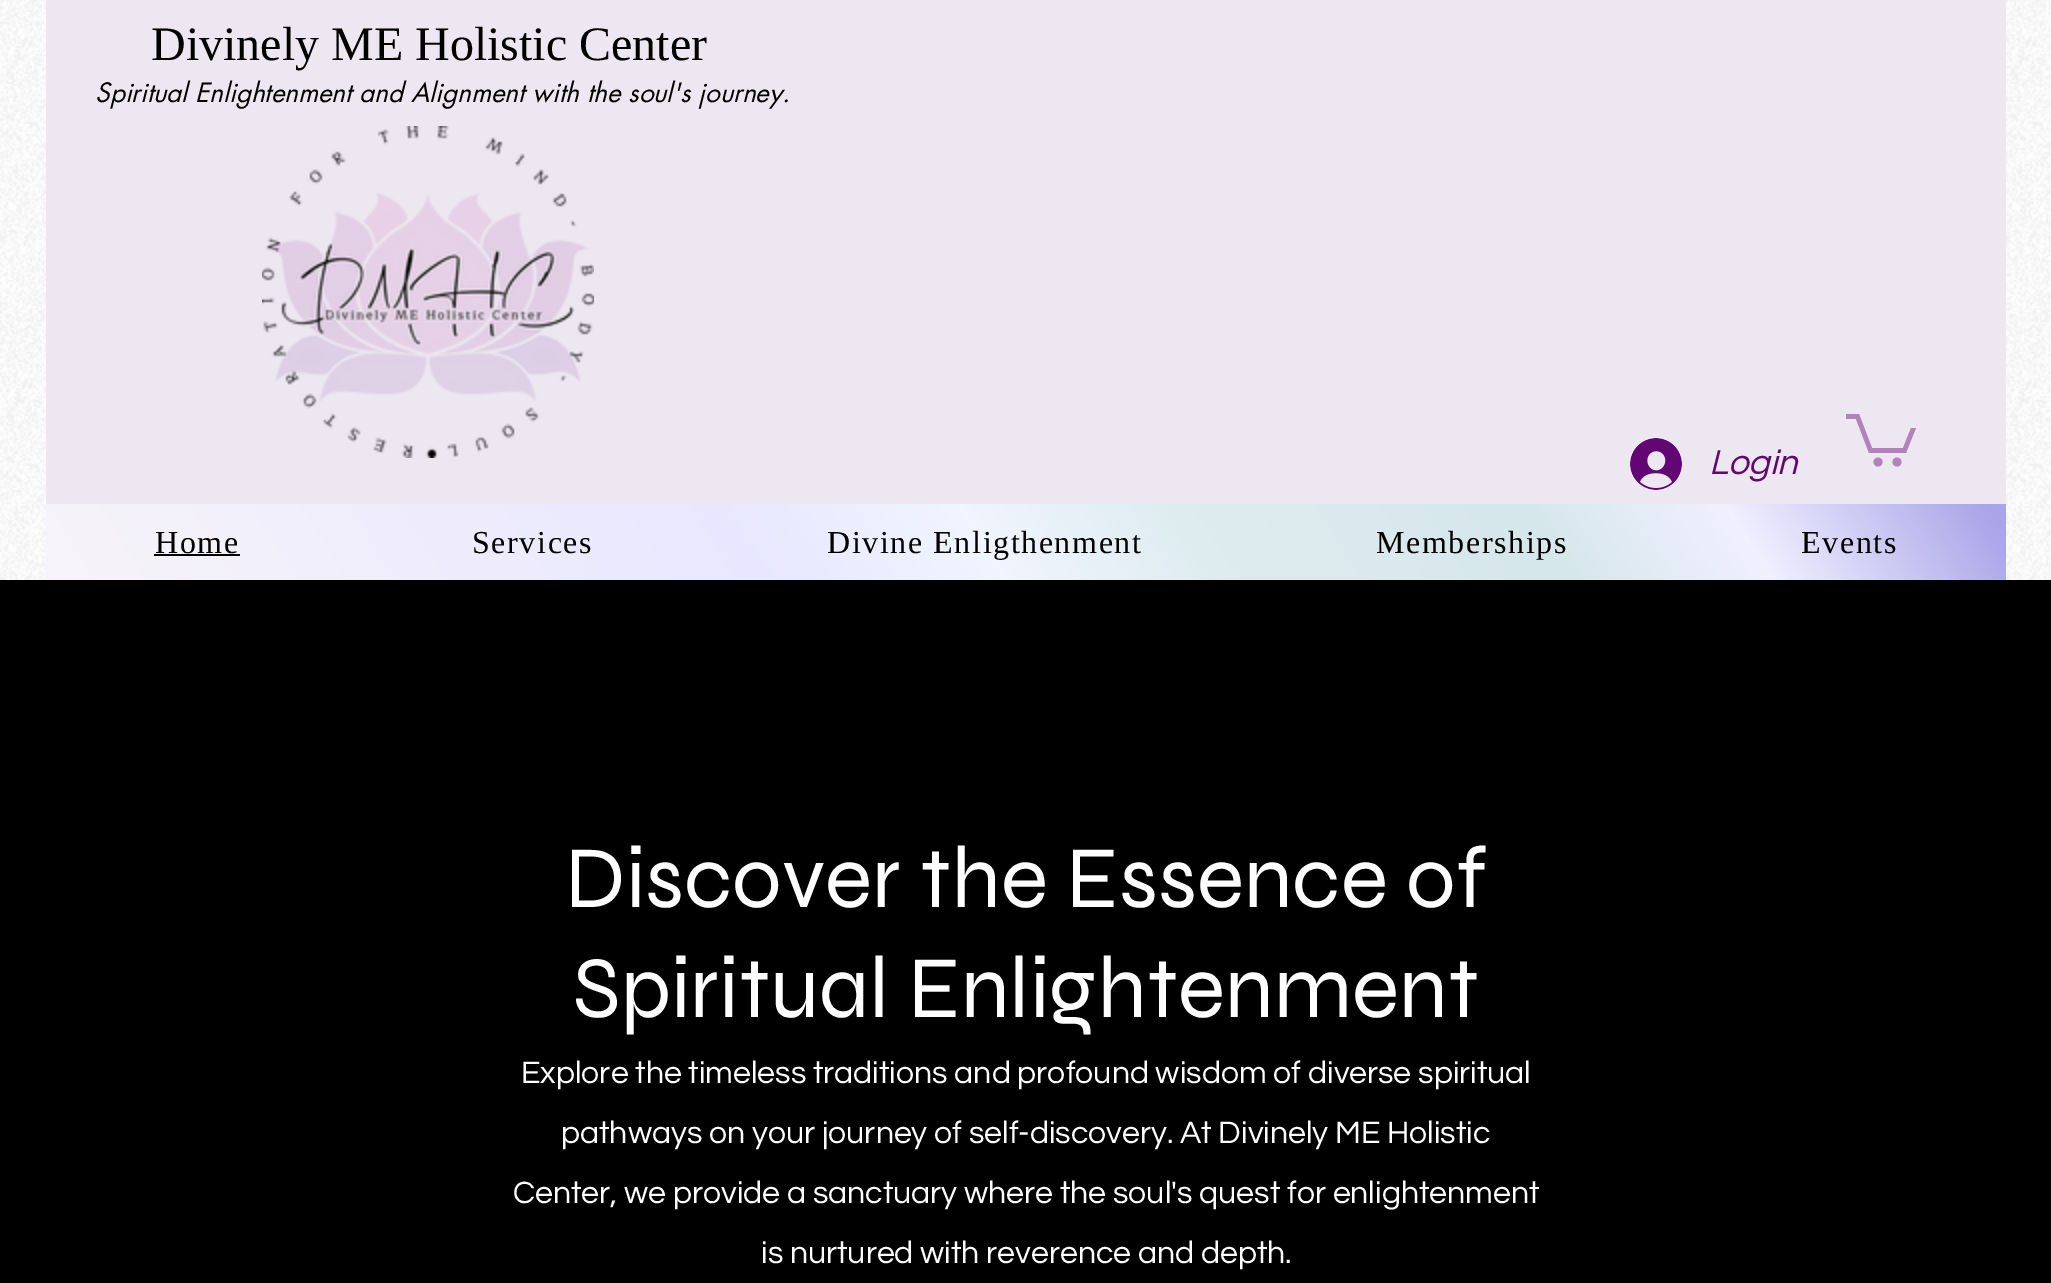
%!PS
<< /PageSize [2051 1283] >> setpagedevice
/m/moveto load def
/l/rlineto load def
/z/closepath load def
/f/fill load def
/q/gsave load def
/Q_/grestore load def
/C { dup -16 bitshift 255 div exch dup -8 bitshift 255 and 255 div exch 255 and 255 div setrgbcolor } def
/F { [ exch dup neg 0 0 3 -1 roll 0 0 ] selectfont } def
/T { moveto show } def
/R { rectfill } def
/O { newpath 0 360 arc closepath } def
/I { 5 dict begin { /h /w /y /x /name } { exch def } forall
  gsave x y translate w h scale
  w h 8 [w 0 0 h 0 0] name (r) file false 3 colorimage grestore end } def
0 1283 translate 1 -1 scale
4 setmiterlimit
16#FFFFFF C
0 0 2051 1283 R
(1.rgb) 0 0 2051 580 I
16#EDE7F2 C
46 0 1960 504 R
/LiberationSerif-Regular 48 F
16#000000 C
(Divinely ME Holistic Center) 151 60 T
/futura-Italic 26 F
(Spiritual Enlightenment and Alignment with the soul's journey.) 95 102 T
(2.rgb) 262 126 332 332 I
(3.rgb) 1630 438 52 52 I
/Questrial-Italic 36 F
16#620674 C
(Login) 1709 474 T
16#B183BA C
1916 428 m -10 25 l -37 0 l -13 -34 l -10 0 l 0 -5 l 13 0 l 13 34 l 31 0 l 8 -20 l f
1897 462 4.5 O f
1878 462 4.5 O f
q 46 504 m 1960 0 l 0 76 l -1960 0 l z clip newpath
<< /ShadingType 2 /ColorSpace /DeviceRGB /Coords [304 993 1748 91] /Extend [true true] /Function << /FunctionType 3 /Domain [0 1] /Functions [<< /FunctionType 2 /Domain [0 1] /C0 [.969 .957 .976] /C1 [.91 .906 1] /N 1 >> << /FunctionType 2 /Domain [0 1] /C0 [.91 .906 1] /C1 [.945 .961 .996] /N 1 >> << /FunctionType 2 /Domain [0 1] /C0 [.945 .961 .996] /C1 [.867 .925 .937] /N 1 >> << /FunctionType 2 /Domain [0 1] /C0 [.867 .925 .937] /C1 [.839 .906 .925] /N 1 >> << /FunctionType 2 /Domain [0 1] /C0 [.839 .906 .925] /C1 [.945 .941 1] /N 1 >> << /FunctionType 2 /Domain [0 1] /C0 [.945 .941 1] /C1 [.663 .647 .91] /N 1 >> << /FunctionType 2 /Domain [0 1] /C0 [.663 .647 .91] /C1 [.663 .647 .91] /N 1 >>] /Bounds [.36 .48 .59 .76 .86 .99] /Encode [0 1 0 1 0 1 0 1 0 1 0 1 0 1] >> >> shfill Q_
/LiberationSerif-Regular 32 F
16#000000 C
155 553 m 1.6 0 (Home) ashow
154 554 86 2 R
472 553 m 1.6 0 (Services) ashow
827 553 m 1.6 0 (Divine Enligthenment) ashow
1376 553 m 1.6 0 (Memberships) ashow
1801 553 m 1.6 0 (Events) ashow
0 580 2051 703 R
/Syne-Regular 88 F
16#FFFFFF C
(Discover the Essence of) 565 907 T
(Spiritual Enlightenment) 573 1017 T
/Questrial-Regular 32 F
(Explore the timeless traditions and profound wisdom of diverse spiritual) 521 1083 T
(pathways on your journey of self-discovery. At Divinely ME Holistic) 561 1143 T
(Center, we provide a sanctuary where the soul's quest for enlightenment) 513 1203 T
(is nurtured with reverence and depth.) 761 1263 T
showpage
